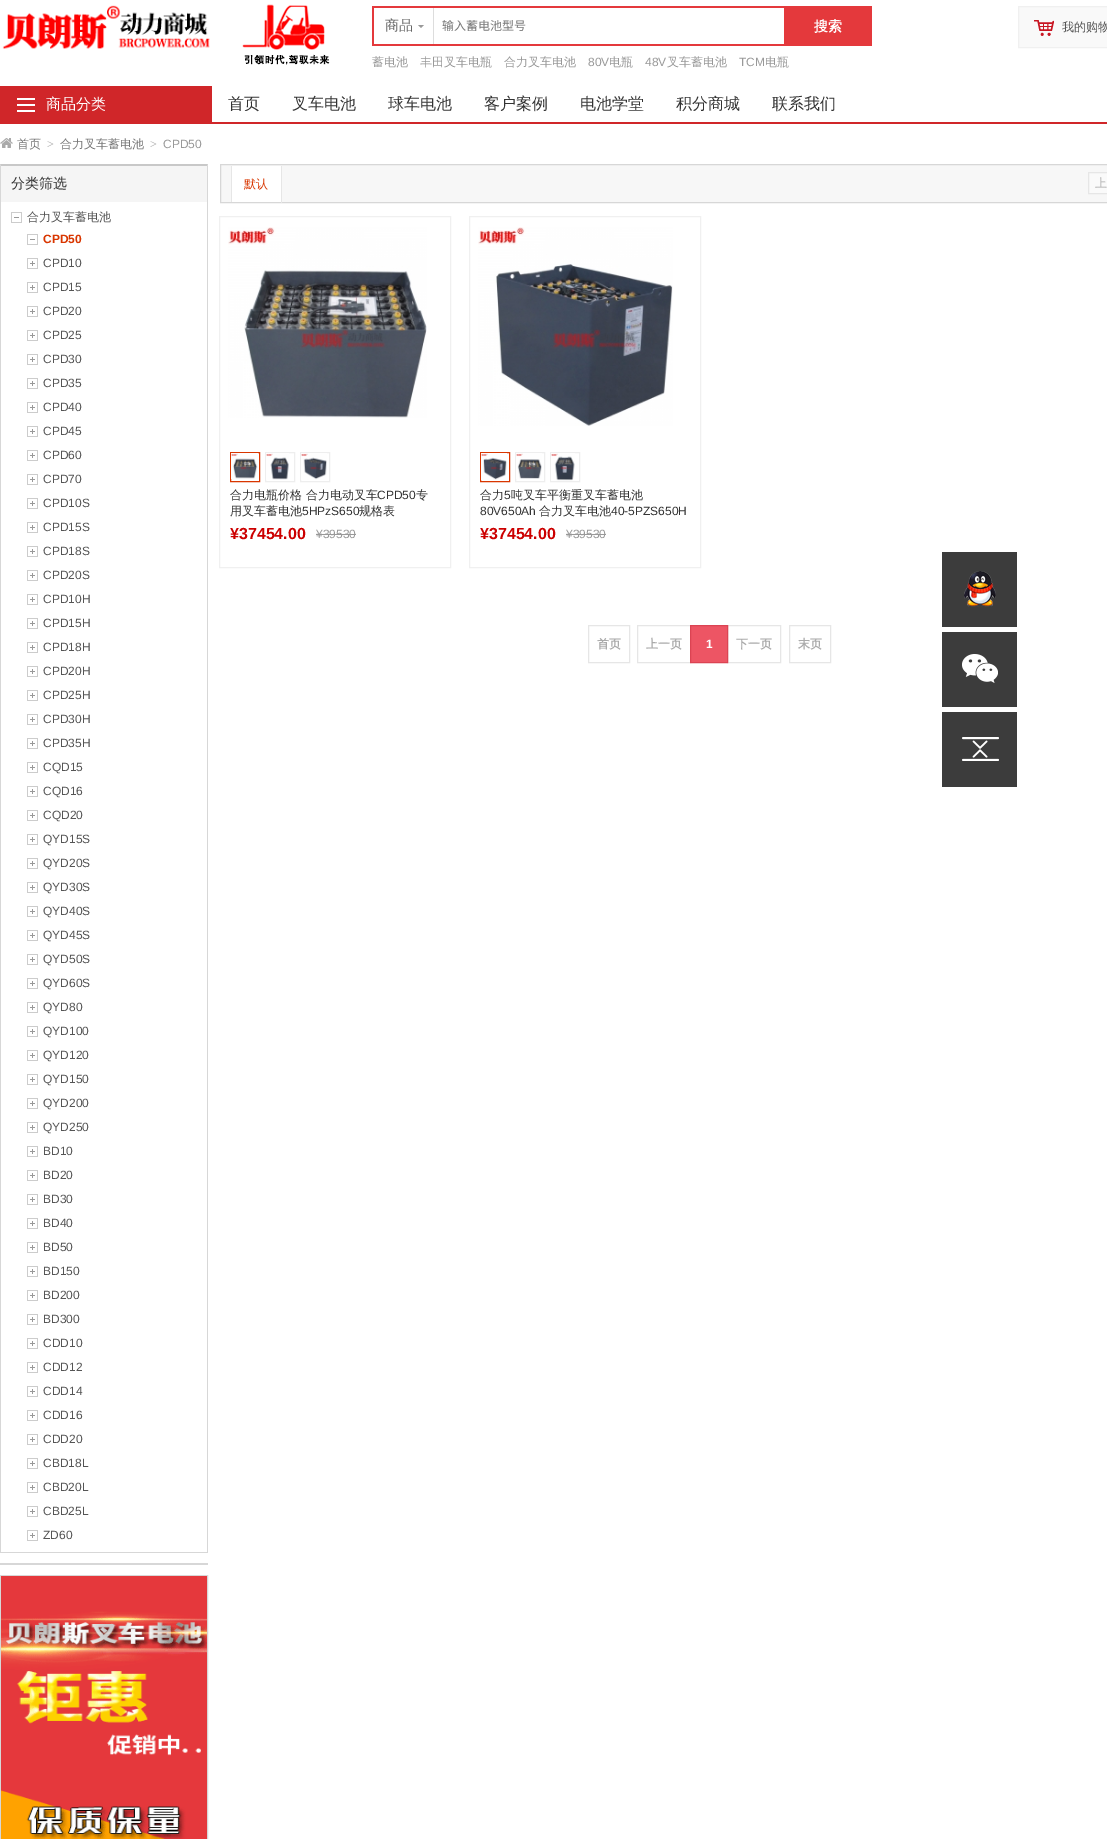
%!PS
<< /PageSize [1107 1839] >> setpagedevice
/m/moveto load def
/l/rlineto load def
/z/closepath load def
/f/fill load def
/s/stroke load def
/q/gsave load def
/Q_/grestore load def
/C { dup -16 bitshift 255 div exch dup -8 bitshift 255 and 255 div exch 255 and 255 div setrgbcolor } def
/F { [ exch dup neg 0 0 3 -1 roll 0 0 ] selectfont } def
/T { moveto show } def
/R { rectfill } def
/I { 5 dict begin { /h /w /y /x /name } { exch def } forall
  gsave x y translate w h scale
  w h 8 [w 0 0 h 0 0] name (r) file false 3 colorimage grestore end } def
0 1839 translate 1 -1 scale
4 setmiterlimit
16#FFFFFF C
0 0 1107 1839 R
(1.rgb) 2 5 208 44 I
(2.rgb) 242 4 88 61 I
16#E4393C C
372 6 62 2 R
372 44 62 2 R
372 6 2 40 R
16#DDDDDD C
433 8 1 36 R
/WenQuanYiZenHei-Medium 14 F
16#666666 C
(商品) 385 30 T
16#999999 C
418 25 m 6 0 l -3 3 l z f
16#E4393C C
434 6 438 40 R
16#FFFFFF C
434 8 350 36 R
/NotoSansCJKSC-Regular 12 F
16#777777 C
(输入蓄电池型号) 442 30 T
/WenQuanYiZenHei-Bold 14 F
16#FFFFFF C
(搜索) 814 31 T
/WenQuanYiZenHei-Medium 12 F
16#999999 C
(蓄电池) 372 66 T
(丰田叉车电瓶) 420 66 T
(合力叉车电池) 504 66 T
/LiberationSans-Regular 12 F
(80V) 588 66 T
/WenQuanYiZenHei-Medium 12 F
(电瓶) 609 66 T
/LiberationSans-Regular 12 F
(48V) 645 66 T
/WenQuanYiZenHei-Medium 12 F
(叉车蓄电池) 667 66 T
/LiberationSans-Regular 12 F
(TCM) 739 66 T
/WenQuanYiZenHei-Medium 12 F
(电瓶) 765 66 T
16#F9F9F9 C
1018.5 6.5 m 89 0 l 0 41 l -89 0 l z q f Q_
16#F0F0F0 C
s
(3.rgb) 1034 20 20 16 I
16#555555 C
(我的购物) 1062 31 T
16#D02629 C
0 122 1107 2 R
0 86 212 36 R
(4.rgb) 17 98 18 14 I
/WenQuanYiZenHei-Medium 15 F
16#FFFFFF C
(商品分类) 46 109 T
/WenQuanYiZenHei-Medium 16 F
16#333333 C
(首页) 228 109 T
(叉车电池) 292 109 T
(球车电池) 388 109 T
(客户案例) 484 109 T
(电池学堂) 580 109 T
(积分商城) 676 109 T
(联系我们) 772 109 T
(5.rgb) 0 138 13 10 I
/WenQuanYiZenHei-Medium 12 F
16#777777 C
(首页) 17 148 T
/LiberationSerif-Regular 12 F
16#AAAAAA C
(>) 47 148 T
/WenQuanYiZenHei-Medium 12 F
16#777777 C
(合力叉车蓄电池) 60 148 T
/LiberationSerif-Regular 12 F
16#AAAAAA C
(>) 150 148 T
/LiberationSans-Regular 12 F
16#999999 C
(CPD50) 163 148 T
16#C8C8C8 C
0 164 m 208 0 l -1 2 l -206 0 l z f
16#D7D7D7 C
208 164 m 0 1389 l -1 -1 l 0 -1386 l z f
0 1552 208 1 R
0 1553 m 0 -1389 l 1 2 l 0 1386 l z f
16#F5F5F5 C
1 166 206 36 R
/WenQuanYiZenHei-Medium 14 F
16#333333 C
(分类筛选) 11 188 T
(6.rgb) 11 212 11 11 I
/WenQuanYiZenHei-Medium 12 F
16#555555 C
(合力叉车蓄电池) 27 221 T
(6.rgb) 27 234 11 11 I
/LiberationSans-Bold 12 F
16#D93600 C
(CPD50) 43 243 T
(7.rgb) 27 258 11 11 I
/LiberationSans-Regular 12 F
16#555555 C
(CPD10) 43 267 T
(7.rgb) 27 282 11 11 I
(CPD15) 43 291 T
(7.rgb) 27 306 11 11 I
(CPD20) 43 315 T
(7.rgb) 27 330 11 11 I
(CPD25) 43 339 T
(7.rgb) 27 354 11 11 I
(CPD30) 43 363 T
(7.rgb) 27 378 11 11 I
(CPD35) 43 387 T
(7.rgb) 27 402 11 11 I
(CPD40) 43 411 T
(7.rgb) 27 426 11 11 I
(CPD45) 43 435 T
(7.rgb) 27 450 11 11 I
(CPD60) 43 459 T
(7.rgb) 27 474 11 11 I
(CPD70) 43 483 T
(7.rgb) 27 498 11 11 I
(CPD10S) 43 507 T
(7.rgb) 27 522 11 11 I
(CPD15S) 43 531 T
(7.rgb) 27 546 11 11 I
(CPD18S) 43 555 T
(7.rgb) 27 570 11 11 I
(CPD20S) 43 579 T
(7.rgb) 27 594 11 11 I
(CPD10H) 43 603 T
(7.rgb) 27 618 11 11 I
(CPD15H) 43 627 T
(7.rgb) 27 642 11 11 I
(CPD18H) 43 651 T
(7.rgb) 27 666 11 11 I
(CPD20H) 43 675 T
(7.rgb) 27 690 11 11 I
(CPD25H) 43 699 T
(7.rgb) 27 714 11 11 I
(CPD30H) 43 723 T
(7.rgb) 27 738 11 11 I
(CPD35H) 43 747 T
(7.rgb) 27 762 11 11 I
(CQD15) 43 771 T
(7.rgb) 27 786 11 11 I
(CQD16) 43 795 T
(7.rgb) 27 810 11 11 I
(CQD20) 43 819 T
(7.rgb) 27 834 11 11 I
(QYD15S) 43 843 T
(7.rgb) 27 858 11 11 I
(QYD20S) 43 867 T
(7.rgb) 27 882 11 11 I
(QYD30S) 43 891 T
(7.rgb) 27 906 11 11 I
(QYD40S) 43 915 T
(7.rgb) 27 930 11 11 I
(QYD45S) 43 939 T
(7.rgb) 27 954 11 11 I
(QYD50S) 43 963 T
(7.rgb) 27 978 11 11 I
(QYD60S) 43 987 T
(7.rgb) 27 1002 11 11 I
(QYD80) 43 1011 T
(7.rgb) 27 1026 11 11 I
(QYD100) 43 1035 T
(7.rgb) 27 1050 11 11 I
(QYD120) 43 1059 T
(7.rgb) 27 1074 11 11 I
(QYD150) 43 1083 T
(7.rgb) 27 1098 11 11 I
(QYD200) 43 1107 T
(7.rgb) 27 1122 11 11 I
(QYD250) 43 1131 T
(7.rgb) 27 1146 11 11 I
(BD10) 43 1155 T
(7.rgb) 27 1170 11 11 I
(BD20) 43 1179 T
(7.rgb) 27 1194 11 11 I
(BD30) 43 1203 T
(7.rgb) 27 1218 11 11 I
(BD40) 43 1227 T
(7.rgb) 27 1242 11 11 I
(BD50) 43 1251 T
(7.rgb) 27 1266 11 11 I
(BD150) 43 1275 T
(7.rgb) 27 1290 11 11 I
(BD200) 43 1299 T
(7.rgb) 27 1314 11 11 I
(BD300) 43 1323 T
(7.rgb) 27 1338 11 11 I
(CDD10) 43 1347 T
(7.rgb) 27 1362 11 11 I
(CDD12) 43 1371 T
(7.rgb) 27 1386 11 11 I
(CDD14) 43 1395 T
(7.rgb) 27 1410 11 11 I
(CDD16) 43 1419 T
(7.rgb) 27 1434 11 11 I
(CDD20) 43 1443 T
(7.rgb) 27 1458 11 11 I
(CBD18L) 43 1467 T
(7.rgb) 27 1482 11 11 I
(CBD20L) 43 1491 T
(7.rgb) 27 1506 11 11 I
(CBD25L) 43 1515 T
(7.rgb) 27 1530 11 11 I
(ZD60) 43 1539 T
16#D7D7D7 C
0 1563 208 2 R
.5 1575.5 207 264 rectstroke
(8.rgb) 1 1576 206 263 I
16#F7F7F7 C
220.5 164.5 m 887 0 l 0 38 l -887 0 l z q f Q_
16#D7D7D7 C
s
16#E6E6E6 C
281 166 1 37 R
16#FFFFFF C
232 166 49 36 R
16#E6E6E6 C
231 166 1 36 R
/WenQuanYiZenHei-Medium 12 F
16#D93600 C
(默认) 244 188 T
16#FAFAFA C
1088.5 172.5 m 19 0 l 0 21 l -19 0 l z q f Q_
16#E6E6E6 C
s
16#AAAAAA C
(上) 1095 187 T
16#F0F0F0 C
219.5 216.5 231 351 rectstroke
(9.rgb) 228 227 199 191 I
16#D93600 C
230.5 452.5 29 29 rectstroke
(10.rgb) 231 453 27 26 I
16#EEEEEE C
265.5 452.5 29 29 rectstroke
(11.rgb) 266 453 23 27 I
300.5 452.5 29 29 rectstroke
(12.rgb) 301 453 26 27 I
16#333333 C
(合力电瓶价格 合力电动叉车) 230 499 T
/LiberationSans-Regular 12 F
(CPD50) 377 499 T
/WenQuanYiZenHei-Medium 12 F
(专) 416 499 T
(用叉车蓄电池) 230 515 T
/LiberationSans-Regular 12 F
(5HPzS650) 302 515 T
/WenQuanYiZenHei-Medium 12 F
(规格表) 359 515 T
/LiberationSans-Bold 16 F
16#CC0000 C
(¥37454.00) 230 539 T
/LiberationSans-Regular 12 F
16#999999 C
(¥39530) 316 538 T
316 534 40 1 R
16#F0F0F0 C
469.5 216.5 231 351 rectstroke
(13.rgb) 478 227 195 199 I
16#D93600 C
480.5 452.5 29 29 rectstroke
(14.rgb) 481 453 26 27 I
16#EEEEEE C
515.5 452.5 29 29 rectstroke
(15.rgb) 516 453 26 26 I
550.5 452.5 29 29 rectstroke
(16.rgb) 551 453 24 28 I
/WenQuanYiZenHei-Medium 12 F
16#333333 C
(合力) 480 499 T
/LiberationSans-Regular 12 F
(5) 504 499 T
/WenQuanYiZenHei-Medium 12 F
(吨叉车平衡重叉车蓄电池) 511 499 T
/LiberationSans-Regular 12 F
(80V650Ah) 480 515 T
/WenQuanYiZenHei-Medium 12 F
(合力叉车电池) 539 515 T
/LiberationSans-Regular 12 F
(40-5PZS650H) 611 515 T
/LiberationSans-Bold 16 F
16#CC0000 C
(¥37454.00) 480 539 T
/LiberationSans-Regular 12 F
16#999999 C
(¥39530) 566 538 T
566 534 40 1 R
16#E6E6E6 C
588.5 625.5 41 37 rectstroke
/WenQuanYiZenHei-Bold 12 F
16#AAAAAA C
(首页) 597 648 T
16#E6E6E6 C
637.5 625.5 53 37 rectstroke
16#AAAAAA C
(上一页) 646 648 T
16#E6E6E6 C
727.5 625.5 53 37 rectstroke
16#ED5564 C
690.5 625.5 m 37 0 l 0 37 l -37 0 l z q f Q_
16#DB4453 C
s
/LiberationSans-Bold 12 F
16#FFFFFF C
(1) 706 648 T
/WenQuanYiZenHei-Bold 12 F
16#AAAAAA C
(下一页) 736 648 T
16#E6E6E6 C
789.5 625.5 41 37 rectstroke
16#AAAAAA C
(末页) 798 648 T
16#3C3C3C C
942 552 75 75 R
(17.rgb) 964 571 32 36 I
942 632 75 75 R
(18.rgb) 962 654 36 29 I
942 712 75 75 R
(19.rgb) 962 737 37 24 I
showpage
